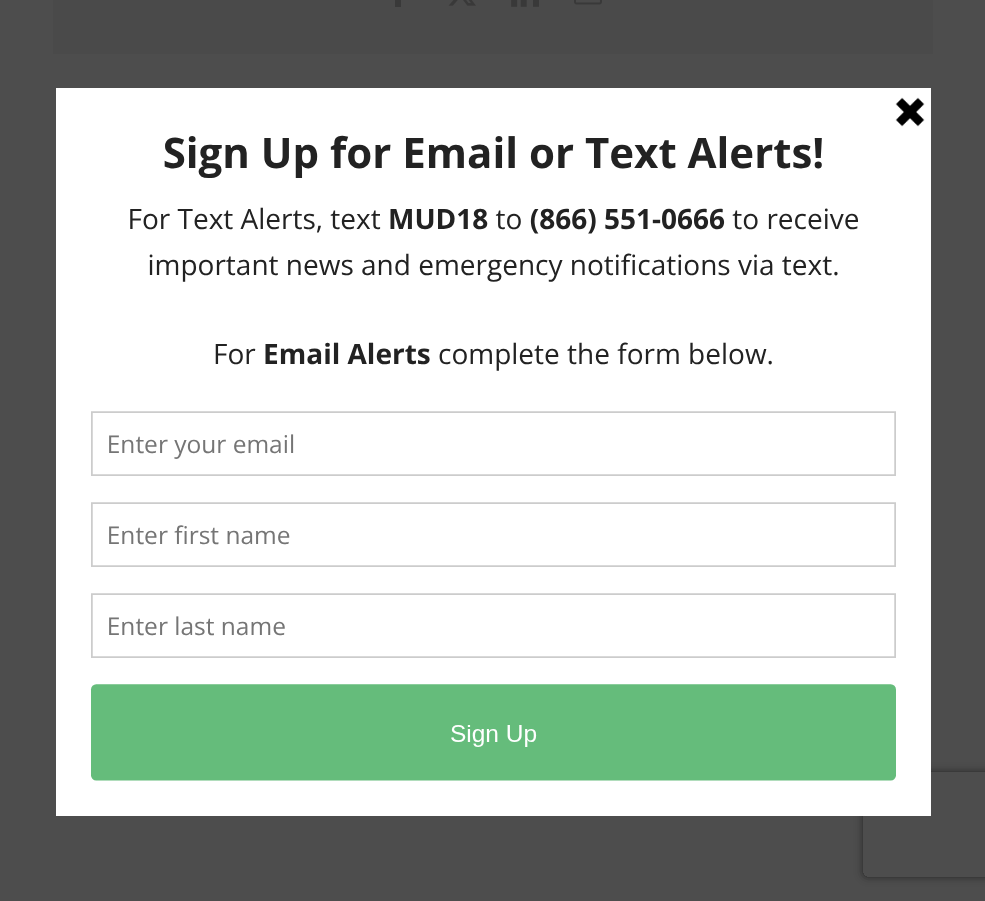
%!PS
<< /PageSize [985 901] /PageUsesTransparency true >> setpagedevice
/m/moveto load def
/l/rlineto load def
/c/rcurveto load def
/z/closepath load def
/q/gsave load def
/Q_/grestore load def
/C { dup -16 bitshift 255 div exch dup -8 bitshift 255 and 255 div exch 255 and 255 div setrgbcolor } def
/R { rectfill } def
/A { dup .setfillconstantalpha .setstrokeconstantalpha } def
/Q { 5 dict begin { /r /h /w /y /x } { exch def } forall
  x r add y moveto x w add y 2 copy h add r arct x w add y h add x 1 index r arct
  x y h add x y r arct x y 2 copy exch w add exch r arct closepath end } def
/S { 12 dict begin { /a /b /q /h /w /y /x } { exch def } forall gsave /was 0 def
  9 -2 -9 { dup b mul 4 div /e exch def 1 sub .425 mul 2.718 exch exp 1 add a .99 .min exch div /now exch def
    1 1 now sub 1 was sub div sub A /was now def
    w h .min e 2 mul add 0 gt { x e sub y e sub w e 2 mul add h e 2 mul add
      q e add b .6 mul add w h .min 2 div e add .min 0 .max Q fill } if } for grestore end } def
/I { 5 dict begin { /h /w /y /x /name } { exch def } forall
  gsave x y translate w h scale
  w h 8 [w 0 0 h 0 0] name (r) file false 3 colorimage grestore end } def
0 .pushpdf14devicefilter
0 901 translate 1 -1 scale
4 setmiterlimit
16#4D4D4D C
0 0 985 901 R
16#4A4A4A C
53 0 880 54 R
16#393939 C
395 0 6 7 R
(1.rgb) 448 0 28 6 I
(2.rgb) 511 0 28 7 I
(3.rgb) 574 0 28 5 I
q
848 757 m 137 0 l 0 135 l -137 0 l z 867 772 m 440 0 l 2 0 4 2 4 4 c 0 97 l 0 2 -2 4 -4 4 c -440 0 l -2 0 -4 -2 -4 -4 c 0 -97 l 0 -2 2 -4 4 -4 c z eoclip newpath
16#262626 C
863 772 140 105 4 4.5 1 S
Q_
(4.rgb) 56 88 875 728 I
.poppdf14devicefilter showpage
